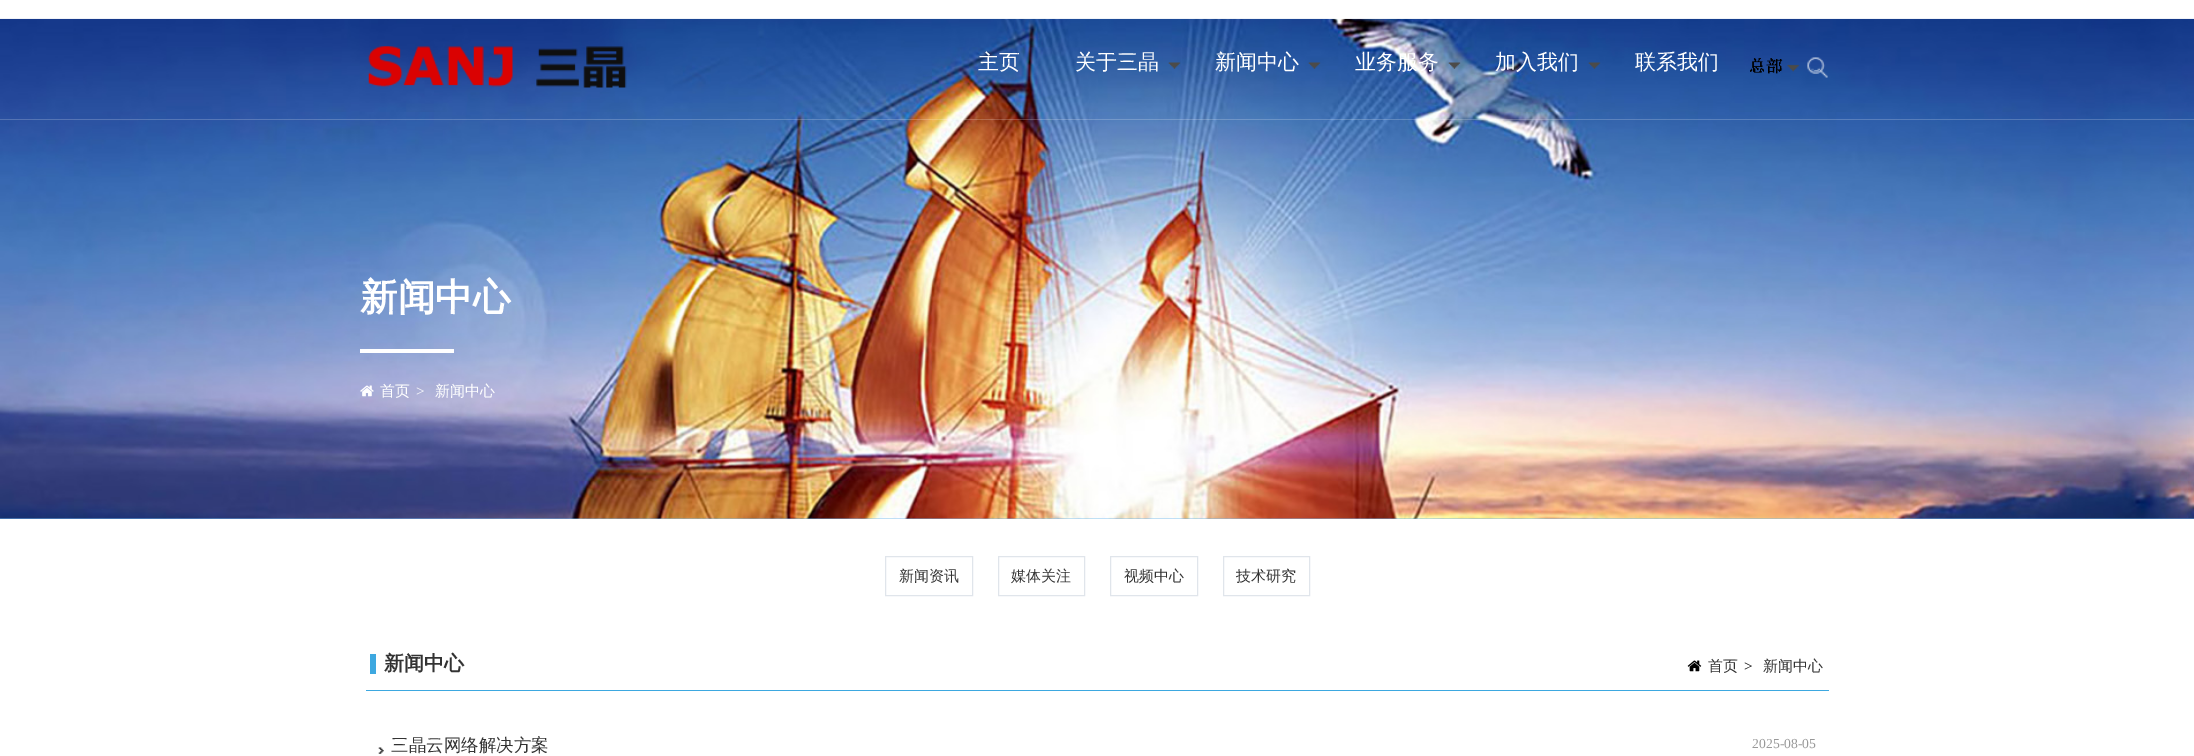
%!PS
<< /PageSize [2194 756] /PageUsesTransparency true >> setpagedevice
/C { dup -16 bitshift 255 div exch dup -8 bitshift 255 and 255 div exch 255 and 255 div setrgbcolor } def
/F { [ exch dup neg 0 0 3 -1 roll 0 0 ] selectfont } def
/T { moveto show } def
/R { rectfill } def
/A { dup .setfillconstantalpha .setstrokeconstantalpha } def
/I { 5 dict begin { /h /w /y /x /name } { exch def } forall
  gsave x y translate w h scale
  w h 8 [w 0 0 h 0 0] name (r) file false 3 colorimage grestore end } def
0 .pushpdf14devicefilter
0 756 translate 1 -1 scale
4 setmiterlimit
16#FFFFFF C
0 0 2194 756 R
16#74BBF1 C
0 518 2194 1 R
(9.rgb) 0 18 2194 501 I
0.2 A
16#FFFFFF C
0 119 2194 1 R
1 A
(1.rgb) 368 46 259 42 I
/WenQuanYiZenHei-Medium 21 F
(主页) 978 69 T
(关于三晶) 1075 69 T
(2.rgb) 1168 62 13 7 I
(新闻中心) 1215 69 T
(3.rgb) 1308 62 13 7 I
(业务服务) 1355 69 T
(4.rgb) 1448 62 13 7 I
(加入我们) 1495 69 T
(5.rgb) 1588 62 13 7 I
(联系我们) 1635 69 T
(6.rgb) 1750 58 33 16 I
(7.rgb) 1787 64 12 8 I
(8.rgb) 1807 57 21 21 I
/WenQuanYiZenHei-Bold 37.5 F
(新闻中心) 360 310 T
360 349 94 4 R
(10.rgb) 360 385 14 12 I
/WenQuanYiZenHei-Medium 15 F
(首页) 380 396 T
/LiberationSerif-Regular 15 F
(>) 416 396 T
/WenQuanYiZenHei-Medium 15 F
(新闻中心) 435 396 T
16#E0E5EB C
885.5 556.5 87 39 rectstroke
16#333333 C
(新闻资讯) 899 581 T
16#E0E5EB C
998.5 556.5 86 39 rectstroke
16#333333 C
(媒体关注) 1011 581 T
16#E0E5EB C
1110.5 556.5 87 39 rectstroke
16#333333 C
(视频中心) 1124 581 T
16#E0E5EB C
1223.5 556.5 86 39 rectstroke
16#333333 C
(技术研究) 1236 581 T
16#3DA8E0 C
366 690 1463 1 R
370 654 6 20 R
/WenQuanYiZenHei-Bold 20 F
16#333333 C
(新闻中心) 384 670 T
(11.rgb) 1687 660 15 12 I
/WenQuanYiZenHei-Medium 15 F
(首页) 1708 671 T
/LiberationSerif-Regular 15 F
16#000000 C
(>) 1744 671 T
/WenQuanYiZenHei-Medium 15 F
16#333333 C
(新闻中心) 1763 671 T
(12.rgb) 378 747 6 7 I
/WenQuanYiZenHei-Medium 17.5 F
(三晶云网络解决方案) 391 751 T
/LiberationSerif-Regular 13.75 F
16#999999 C
(2025-08-05) 1752 748 T
.poppdf14devicefilter showpage
